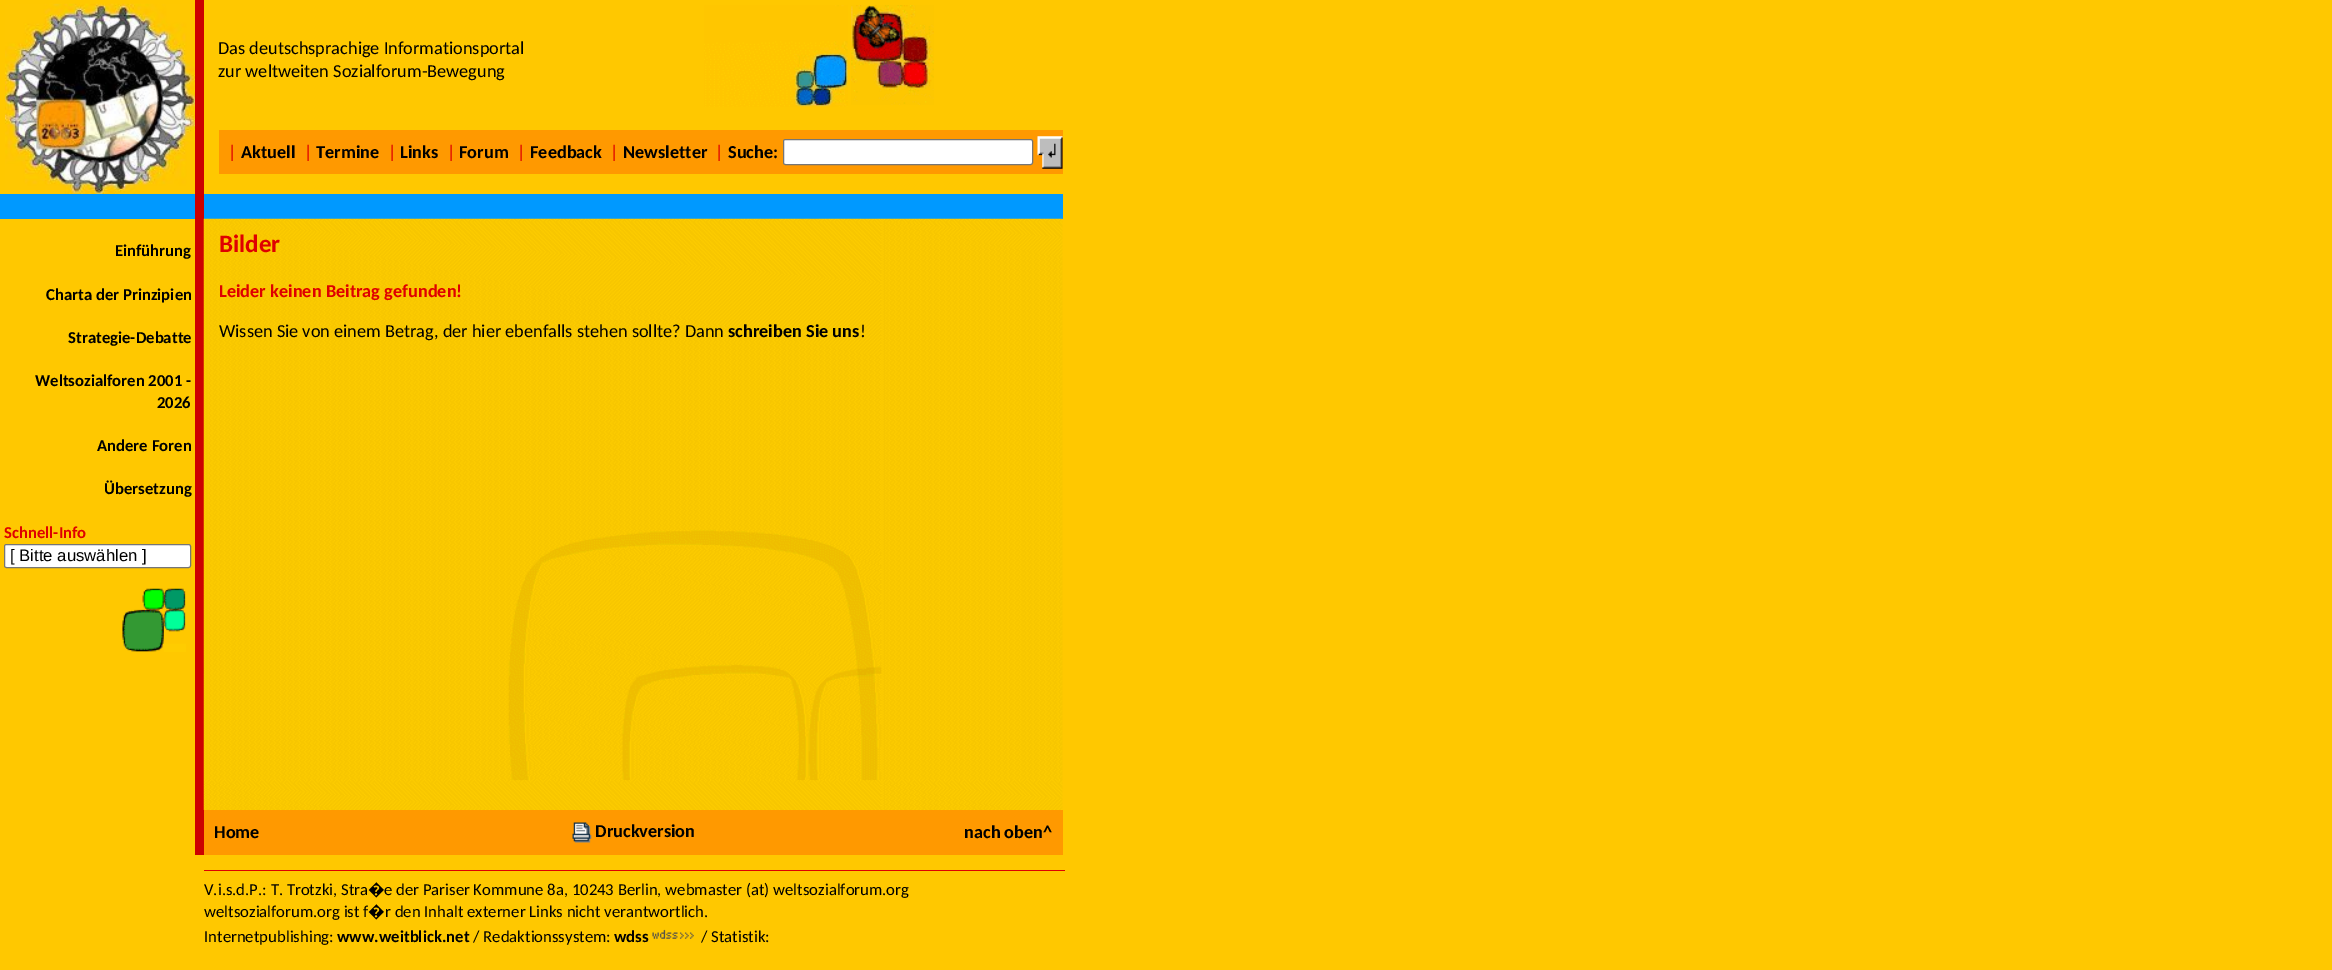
%!PS
<< /PageSize [2332 970] >> setpagedevice
/f/fill load def
/s/stroke load def
/q/gsave load def
/Q_/grestore load def
/C { dup -16 bitshift 255 div exch dup -8 bitshift 255 and 255 div exch 255 and 255 div setrgbcolor } def
/F { [ exch dup neg 0 0 3 -1 roll 0 0 ] selectfont } def
/T { moveto show } def
/R { rectfill } def
/Q { 5 dict begin { /r /h /w /y /x } { exch def } forall
  x r add y moveto x w add y 2 copy h add r arct x w add y h add x 1 index r arct
  x y h add x y r arct x y 2 copy exch w add exch r arct closepath end } def
/I { 5 dict begin { /h /w /y /x /name } { exch def } forall
  gsave x y translate w h scale
  w h 8 [w 0 0 h 0 0] name (r) file false 3 colorimage grestore end } def
0 970 translate 1 -1 scale
4 setmiterlimit
16#FFC800 C
0 0 2332 970 R
(1.rgb) 5 3 190 191 I
16#CC0000 C
195 0 9 855 R
/Carlito-Regular 18.3 F
16#000000 C
(Das deutschsprachige Informationsportal) 218 54 T
(zur weltweiten Sozialforum-Bewegung) 218 77 T
(2.rgb) 704 5 144 102 I
(3.rgb) 851 5 83 100 I
16#FF9900 C
219 130 844 44 R
16#DF0000 C
(|) 228 158 T
/Carlito-Bold 18.3 F
16#000000 C
(Aktuell) 241 158 T
/Carlito-Regular 18.3 F
16#DF0000 C
(|) 304 158 T
/Carlito-Bold 18.3 F
16#000000 C
(Termine) 316 158 T
/Carlito-Regular 18.3 F
16#DF0000 C
(|) 388 158 T
/Carlito-Bold 18.3 F
16#000000 C
(Links) 400 158 T
/Carlito-Regular 18.3 F
16#DF0000 C
(|) 447 158 T
/Carlito-Bold 18.3 F
16#000000 C
(Forum) 459 158 T
/Carlito-Regular 18.3 F
16#DF0000 C
(|) 517 158 T
/Carlito-Bold 18.3 F
16#000000 C
(Feedback) 530 158 T
/Carlito-Regular 18.3 F
16#DF0000 C
(|) 610 158 T
/Carlito-Bold 18.3 F
16#000000 C
(Newsletter) 623 158 T
/Carlito-Regular 18.3 F
16#DF0000 C
(|) 715 158 T
/Carlito-Bold 18.3 F
16#000000 C
(Suche:) 728 158 T
16#FFFFFF C
783.5 139.5 249 25 2 Q q f Q_
16#767676 C
s
(4.rgb) 1037 136 26 33 I
16#0099FF C
0 194 195 25 R
204 194 859 25 R
/Carlito-Bold 16.7 F
16#000000 C
(Einführung) 115 256 T
(Charta der Prinzipien) 46 300 T
(Strategie-Debatte) 68 343 T
(Weltsozialforen 2001 -) 35 386 T
(2026) 157 408 T
(Andere Foren) 97 451 T
(Übersetzung) 104 494 T
16#DF0000 C
(Schnell-Info) 4 538 T
16#FFFFFF C
4.5 544.5 186 23 2 Q q f Q_
16#767676 C
s
/LiberationSans-Regular 16.7 F
16#000000 C
([ Bitte auswählen ]) 10 561 T
(5.rgb) 122 588 64 64 I
(6.rgb) 203 218 860 592 I
/Carlito-Bold 25 F
16#DF0000 C
(Bilder) 219 252 T
/Carlito-Bold 18.3 F
(Leider keinen Beitrag gefunden!) 219 297 T
/Carlito-Regular 18.3 F
16#000000 C
(Wissen Sie von einem Betrag, der hier ebenfalls stehen sollte? Dann) 219 337 T
/Carlito-Bold 18.3 F
(schreiben Sie uns) 728 337 T
/Carlito-Regular 18.3 F
(!) 860 337 T
16#FF9900 C
204 810 859 45 R
/Carlito-Bold 18.3 F
16#000000 C
(Home) 214 838 T
(7.rgb) 572 822 20 21 I
(Druckversion) 595 837 T
(nach oben^) 964 838 T
16#DF0000 C
204 870 861 1 R
/Carlito-Regular 16.7 F
16#000000 C
(V.i.s.d.P.: T. Trotzki, Stra) 204 895 T
/NotoSans-Regular 16.7 F
(�) 368 895 T
/Carlito-Regular 16.7 F
(e der Pariser Kommune 8a, 10243 Berlin, webmaster \(at\) weltsozialforum.org) 384 895 T
(weltsozialforum.org ist f) 204 917 T
/NotoSans-Regular 16.7 F
(�) 368 917 T
/Carlito-Regular 16.7 F
(r den Inhalt externer Links nicht verantwortlich.) 385 917 T
(Internetpublishing:) 204 942 T
/Carlito-Bold 16.7 F
(www.weitblick.net) 337 942 T
/Carlito-Regular 16.7 F
(/ Redaktionssystem:) 473 942 T
/Carlito-Bold 16.7 F
(wdss) 614 942 T
(8.rgb) 652 929 42 10 I
/Carlito-Regular 16.7 F
(/ Statistik:) 701 942 T
showpage
